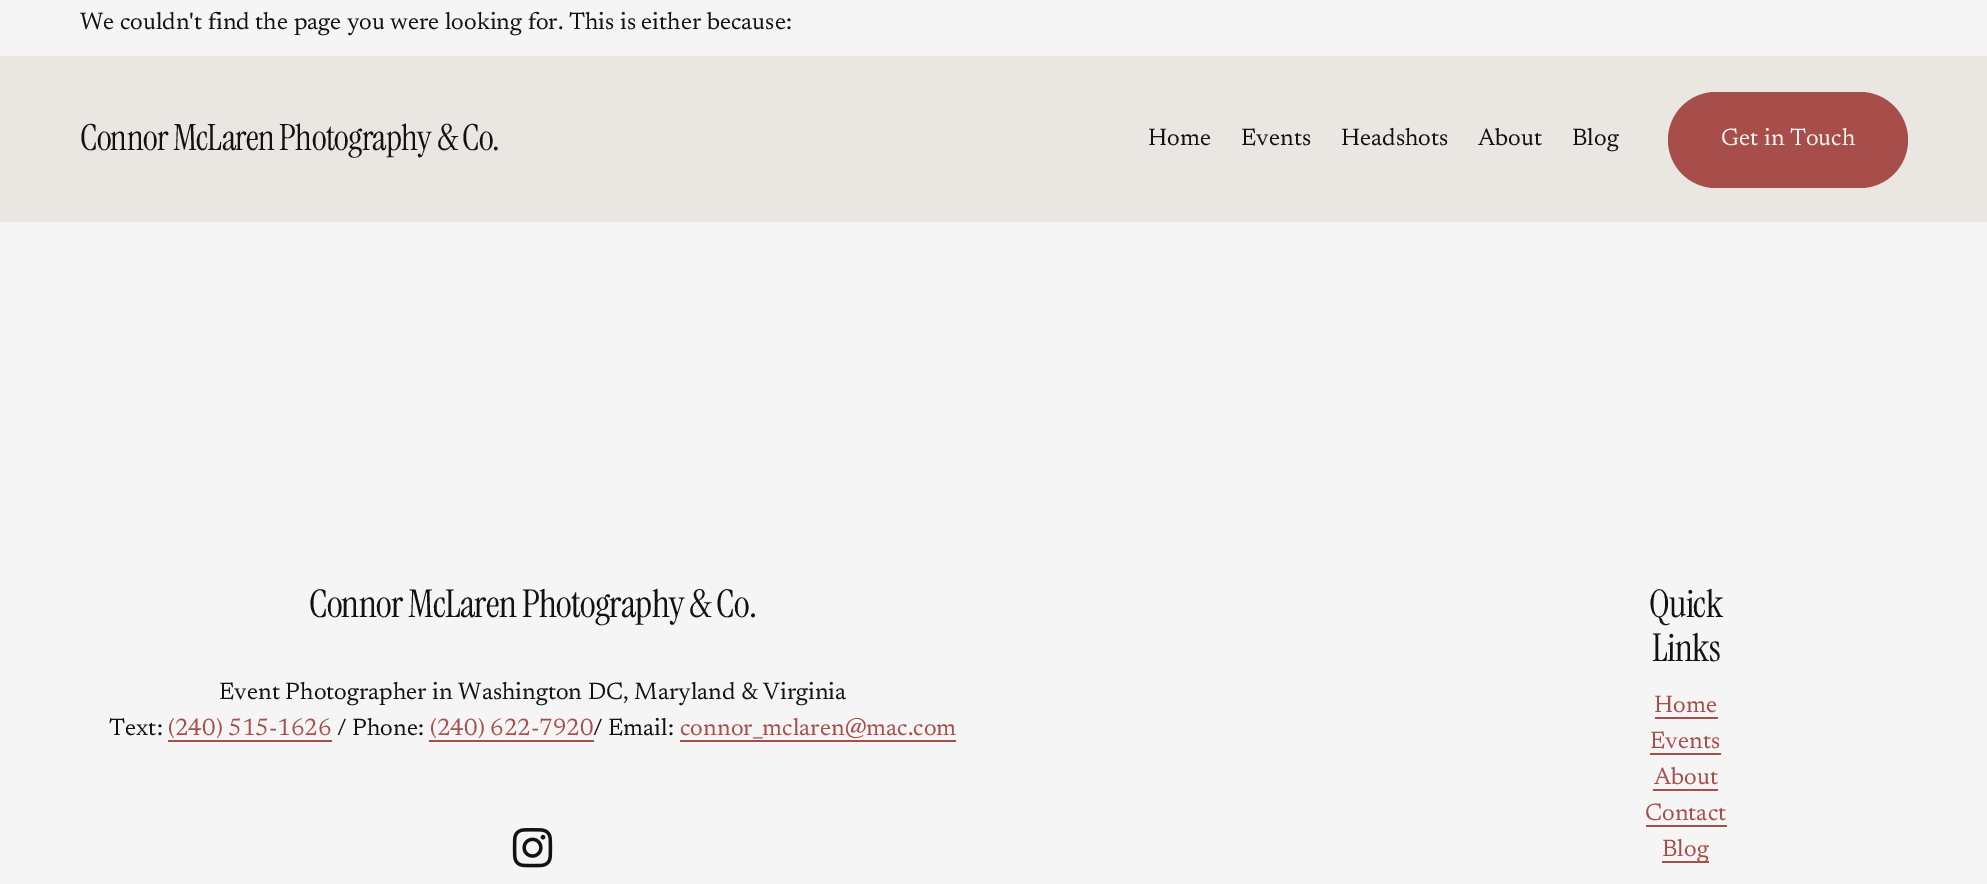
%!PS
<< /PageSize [1987 884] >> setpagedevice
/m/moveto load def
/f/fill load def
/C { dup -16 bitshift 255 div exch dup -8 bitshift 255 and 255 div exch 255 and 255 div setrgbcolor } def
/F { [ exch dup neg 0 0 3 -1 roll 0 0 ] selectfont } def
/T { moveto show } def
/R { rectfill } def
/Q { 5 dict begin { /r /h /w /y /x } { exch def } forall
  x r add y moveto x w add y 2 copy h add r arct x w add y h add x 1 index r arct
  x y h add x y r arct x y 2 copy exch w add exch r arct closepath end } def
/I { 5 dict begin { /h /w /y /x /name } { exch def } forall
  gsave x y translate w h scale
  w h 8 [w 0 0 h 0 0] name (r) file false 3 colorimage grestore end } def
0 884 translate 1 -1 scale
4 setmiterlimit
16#F5F5F5 C
0 0 1987 884 R
/Newsreader-Regular 24 F
16#121212 C
(We couldn't find the page you were looking for. This is either because:) 80 29 T
16#EAE6E1 C
0 56 1987 166 R
/InstrumentSerif-Regular 36 F
16#121212 C
80 150 m -.75 0 (Connor McLaren Photography & Co.) ashow
/Newsreader-Regular 24 F
(Home) 1148 145 T
(Events) 1241 145 T
(Headshots) 1341 145 T
(About) 1478 145 T
(Blog) 1572 145 T
16#A74D4A C
1668 92 240 96 48 Q f
16#F5F5F5 C
(Get in Touch) 1721 145 T
/InstrumentSerif-Regular 38.25 F
16#121212 C
309 617 m -.75 0 (Connor McLaren Photography & Co.) ashow
/Newsreader-Regular 24 F
(Event Photographer in Washington DC, Maryland & Virginia) 219 699 T
(Text:) 109 735 T
16#A74D4A C
(\(240\) 515-1626) 168 735 T
168 740 164 2 R
16#121212 C
(/ Phone:) 337 735 T
16#A74D4A C
(\(240\) 622-7920) 430 735 T
429 740 165 2 R
16#121212 C
(/ Email:) 593 735 T
16#A74D4A C
(connor_mclaren@mac.com) 680 735 T
680 740 276 2 R
/InstrumentSerif-Regular 38.25 F
16#121212 C
1649 617 m -.75 0 (Quick) ashow
1652 661 m -.75 0 (Links) ashow
(1.rgb) 512 828 41 40 I
/Newsreader-Regular 24 F
16#A74D4A C
(Home) 1654 712 T
1655 717 63 2 R
(Events) 1650 748 T
1650 753 71 2 R
(About) 1654 784 T
1653 789 65 2 R
(Contact) 1645 820 T
1646 825 81 2 R
1662 861 47 2 R
(Blog) 1662 856 T
showpage
